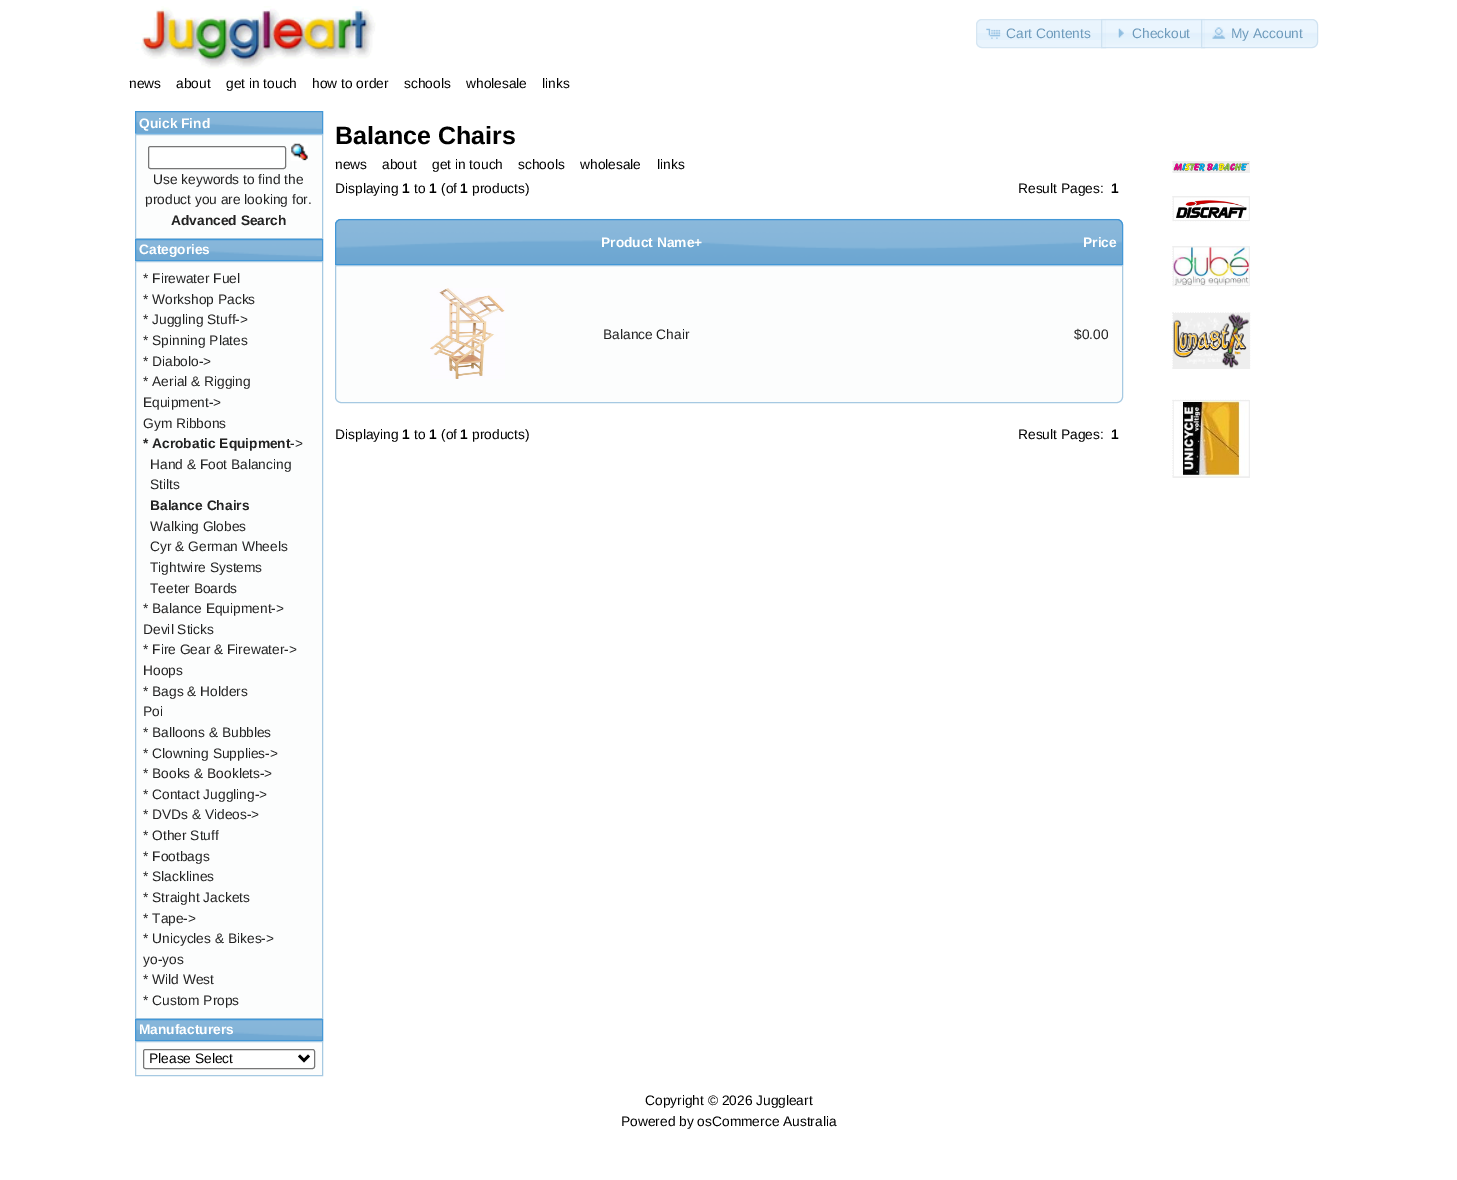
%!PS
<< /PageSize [1457 1180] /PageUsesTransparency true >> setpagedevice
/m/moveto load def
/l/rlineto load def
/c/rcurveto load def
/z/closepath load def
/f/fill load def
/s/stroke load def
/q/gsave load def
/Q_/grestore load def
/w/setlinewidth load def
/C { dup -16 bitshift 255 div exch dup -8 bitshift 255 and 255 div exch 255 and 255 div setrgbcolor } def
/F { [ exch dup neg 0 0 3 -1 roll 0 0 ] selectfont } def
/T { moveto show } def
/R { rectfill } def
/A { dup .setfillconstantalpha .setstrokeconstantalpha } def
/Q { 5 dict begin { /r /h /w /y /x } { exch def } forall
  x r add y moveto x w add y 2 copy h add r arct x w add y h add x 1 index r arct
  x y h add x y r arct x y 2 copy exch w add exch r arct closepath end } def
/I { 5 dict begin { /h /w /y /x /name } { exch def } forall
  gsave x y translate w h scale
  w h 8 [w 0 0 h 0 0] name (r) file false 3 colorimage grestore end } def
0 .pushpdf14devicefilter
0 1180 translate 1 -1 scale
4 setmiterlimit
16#FFFFFF C
0 0 1457 1180 R
(1.rgb) 135 6 241 63 I
16#E9F4FD C
982 19 m 124 0 l 0 29 l -124 0 l -3.5 0 -6 -2.5 -6 -6 c 0 -17 l 0 -3.5 2.5 -6 6 -6 c z f
16#E3F1FC C
976 33 130 7 R
16#D6E6F2 C
982 19.5 m 123.5 0 l 0 28 l -123.5 0 l -3 0 -5.5 -2.5 -5.5 -5.5 c 0 -17 l 0 -3 2.5 -5.5 5.5 -5.5 c z s
(2.rgb) 986 28 15 11 I
/LiberationSans-Regular 13.75 F
16#6D9ABB C
(Cart Contents) 1006 38 T
0.7 A
16#DFEFFC C
1101 19 104 29 R
1 A
(3.rgb) 1101 18 104 30 I
0.7 A
16#C5DBEC C
1101.5 19.5 103 28 rectstroke
1 A
(4.rgb) 1118 28 6 10 I
16#6D9ABB C
(Checkout) 1132 38 T
0.7 A
16#DFEFFC C
1201 19 m 111 0 l 3.5 0 6 2.5 6 6 c 0 17 l 0 3.5 -2.5 6 -6 6 c -111 0 l z f
1 A
(5.rgb) 1201 19 116 28 I
0.7 A
16#C5DBEC C
1201.5 19.5 m 110.5 0 l 3 0 5.5 2.5 5.5 5.5 c 0 17 l 0 3 -2.5 5.5 -5.5 5.5 c -110.5 0 l z s
1 A
(6.rgb) 1212 27 14 12 I
16#6D9ABB C
(My Account) 1231 38 T
16#000000 C
(news) 129 88 T
(about) 176 88 T
(get in touch) 226 88 T
(how to order) 312 88 T
(schools) 404 88 T
(wholesale) 466 88 T
(links) 542 88 T
(7.rgb) 136 112 186 21 I
16#4297D7 C
135.5 111.5 187 22 rectstroke
/LiberationSans-Bold 13.75 F
16#FFFFFF C
(Quick Find) 139 128 T
16#FCFDFD C
135.5 134.5 m 187 0 l 0 104 l -187 0 l z q f Q_
16#A6C9E2 C
s
(8.rgb) 135 133 188 1 I
16#FFFFFF C
148.5 146.5 137 22 2 Q q f Q_
16#767676 C
s
(9.rgb) 291 143 17 18 I
/LiberationSans-Regular 13.75 F
16#222222 C
(Use keywords to find the) 153 184 T
(product you are looking for.) 145 204 T
/LiberationSans-Bold 13.75 F
(Advanced Search) 171 225 T
(10.rgb) 135 238 188 22 I
16#4297D7 C
135.5 239.5 187 21 rectstroke
16#FFFFFF C
(Categories) 139 254 T
16#FCFDFD C
135.5 261.5 m 187 0 l 0 757 l -187 0 l z q f Q_
16#A6C9E2 C
s
/LiberationSans-Regular 13.75 F
16#222222 C
(* Firewater Fuel) 143 283 T
(* Workshop Packs) 143 304 T
(* Juggling Stuff->) 143 324 T
(* Spinning Plates) 143 345 T
(* Diabolo->) 143 366 T
(* Aerial & Rigging) 143 386 T
(Equipment->) 143 407 T
(Gym Ribbons) 143 428 T
/LiberationSans-Bold 13.75 F
(* Acrobatic Equipment) 143 448 T
/LiberationSans-Regular 13.75 F
(->) 290 448 T
(Hand & Foot Balancing) 150 469 T
(Stilts) 150 489 T
/LiberationSans-Bold 13.75 F
(Balance Chairs) 150 510 T
/LiberationSans-Regular 13.75 F
(Walking Globes) 150 531 T
(Cyr & German Wheels) 150 551 T
(Tightwire Systems) 150 572 T
(Teeter Boards) 150 593 T
(* Balance Equipment->) 143 613 T
(Devil Sticks) 143 634 T
(* Fire Gear & Firewater->) 143 654 T
(Hoops) 143 675 T
(* Bags & Holders) 143 696 T
(Poi) 143 716 T
(* Balloons & Bubbles) 143 737 T
(* Clowning Supplies->) 143 758 T
(* Books & Booklets->) 143 778 T
(* Contact Juggling->) 143 799 T
(* DVDs & Videos->) 143 819 T
(* Other Stuff) 143 840 T
(* Footbags) 143 861 T
(* Slacklines) 143 881 T
(* Straight Jackets) 143 902 T
(* Tape->) 143 923 T
(* Unicycles & Bikes->) 143 943 T
(yo-yos) 143 964 T
(* Wild West) 143 984 T
(* Custom Props) 143 1005 T
(10.rgb) 135 1018 188 22 I
16#4297D7 C
135.5 1019.5 187 21 rectstroke
/LiberationSans-Bold 13.75 F
16#FFFFFF C
(Manufacturers) 139 1034 T
16#FCFDFD C
135.5 1041.5 m 187 0 l 0 34 l -187 0 l z q f Q_
16#A6C9E2 C
s
16#FFFFFF C
143.5 1049.5 171 19 2 Q q f Q_
16#767676 C
s
16#000000 C
2.5 w
299 1055.5 m 5 5 l 5 -5 l s
/LiberationSans-Regular 13.75 F
(Please Select) 149 1063 T
/LiberationSans-Bold 25 F
(Balance Chairs) 335 144 T
/LiberationSans-Regular 13.75 F
(news) 335 169 T
(about) 382 169 T
(get in touch) 432 169 T
(schools) 518 169 T
(wholesale) 580 169 T
(links) 657 169 T
(Displaying) 335 193 T
/LiberationSans-Bold 13.75 F
(1) 402 193 T
/LiberationSans-Regular 13.75 F
(to) 414 193 T
/LiberationSans-Bold 13.75 F
(1) 429 193 T
/LiberationSans-Regular 13.75 F
(\(of) 441 193 T
/LiberationSans-Bold 13.75 F
(1) 460 193 T
/LiberationSans-Regular 13.75 F
(products\)) 472 193 T
(Result Pages:) 1018 193 T
/LiberationSans-Bold 13.75 F
(1) 1111 193 T
(11.rgb) 335 218 788 46 I
16#4297D7 C
1 w
341 219.5 m 776 0 l 3 0 5.5 2.5 5.5 5.5 c 0 39.5 l -787 0 l 0 -39.5 l 0 -3 2.5 -5.5 5.5 -5.5 c z s
16#FFFFFF C
(Product Name+) 601 247 T
(Price) 1083 247 T
16#FCFDFD C
335.5 265.5 m 787 0 l 0 131.5 l 0 3 -2.5 5.5 -5.5 5.5 c -776 0 l -3 0 -5.5 -2.5 -5.5 -5.5 c z q f Q_
16#A6C9E2 C
s
(12.rgb) 430 288 75 91 I
/LiberationSans-Regular 13.75 F
16#222222 C
(Balance Chair) 603 339 T
($0.00) 1074 339 T
16#000000 C
(Displaying) 335 439 T
/LiberationSans-Bold 13.75 F
(1) 402 439 T
/LiberationSans-Regular 13.75 F
(to) 414 439 T
/LiberationSans-Bold 13.75 F
(1) 429 439 T
/LiberationSans-Regular 13.75 F
(\(of) 441 439 T
/LiberationSans-Bold 13.75 F
(1) 460 439 T
/LiberationSans-Regular 13.75 F
(products\)) 472 439 T
(Result Pages:) 1018 439 T
/LiberationSans-Bold 13.75 F
(1) 1111 439 T
16#EEEEEE C
1173 161 77 12 R
1.2 w
[1.25 1.25] 0 setdash
1172.5 162 m 77.5 0 l s
1172.5 172 m 77.5 0 l s
1173 161 m 0 11.5 l s
(13.rgb) 1173 163 76 9 I
1173 196 77 25 R
1172.5 197 m 77.5 0 l s
1172.5 220.5 m 77.5 0 l s
1173 196 m 0 25 l s
(14.rgb) 1173 197 76 23 I
1173 246 77 40 R
1172.5 247 m 77.5 0 l s
1172.5 285.5 m 77.5 0 l s
1173 246 m 0 40 l s
(15.rgb) 1173 247 76 38 I
1173 313 77 56 R
1172.5 313 m 77.5 0 l s
1249.5 312.5 m 0 56.5 l s
1172.5 368 m 77.5 0 l s
1173 312.5 m 0 56.5 l s
(16.rgb) 1173 313 76 55 I
1173 400 77 78 R
1172.5 400.5 m 77.5 0 l s
1172.5 477 m 77.5 0 l s
1173 400 m 0 77.5 l s
(17.rgb) 1173 401 76 76 I
/LiberationSans-Regular 13.75 F
16#000000 C
(Copyright © 2026 Juggleart) 645 1105 T
(Powered by osCommerce Australia) 621 1126 T
.poppdf14devicefilter showpage
